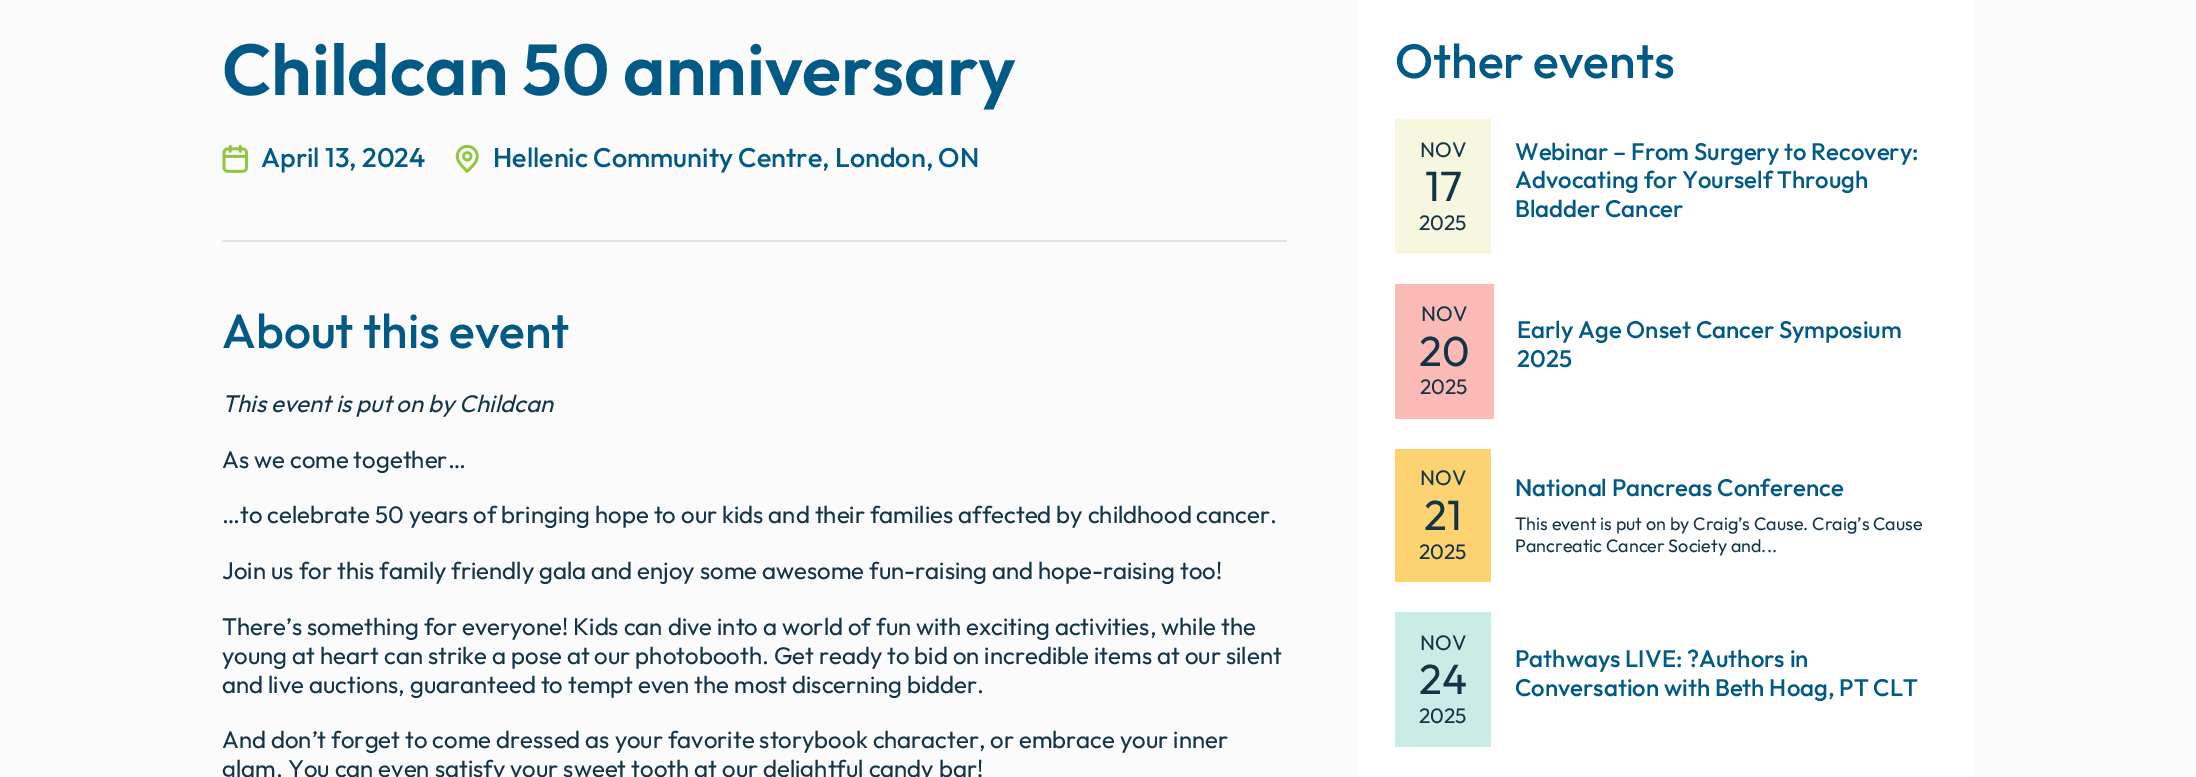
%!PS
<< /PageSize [2196 777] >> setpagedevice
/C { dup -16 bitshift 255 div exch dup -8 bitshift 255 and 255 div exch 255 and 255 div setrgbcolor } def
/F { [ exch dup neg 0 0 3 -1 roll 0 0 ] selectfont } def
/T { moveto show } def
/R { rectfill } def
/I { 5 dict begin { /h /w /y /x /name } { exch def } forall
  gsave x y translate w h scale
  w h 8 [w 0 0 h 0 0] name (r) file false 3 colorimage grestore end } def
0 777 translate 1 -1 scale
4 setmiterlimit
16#FBFBFB C
0 0 2196 777 R
16#E3E3E3 C
222 240 1065 2 R
/Outfit-SemiBold 72 F
16#015A86 C
(Childcan 50 anniversary) 222 95 T
(1.rgb) 222 144 26 29 I
/Outfit-Medium 27 F
(April 13, 2024) 261 167 T
(2.rgb) 455 144 24 29 I
(Hellenic Community Centre, London, ON) 493 167 T
/Outfit-Medium 48 F
(About this event) 222 348 T
/Outfit-Italic 24 F
16#123446 C
(This event is put on by Childcan) 222 412 T
/Outfit-Regular 24 F
(As we come together…) 222 468 T
(…to celebrate 50 years of bringing hope to our kids and their families affected by childhood cancer.) 222 523 T
(Join us for this family friendly gala and enjoy some awesome fun-raising and hope-raising too!) 222 579 T
(There’s something for everyone! Kids can dive into a world of fun with exciting activities, while the) 222 635 T
(young at heart can strike a pose at our photobooth. Get ready to bid on incredible items at our silent) 222 664 T
(and live auctions, guaranteed to tempt even the most discerning bidder.) 222 693 T
(And don’t forget to come dressed as your favorite storybook character, or embrace your inner) 222 748 T
(glam. You can even satisfy your sweet tooth at our delightful candy bar!) 222 777 T
16#FFFFFF C
1359 0 615 777 R
/Outfit-Medium 48 F
16#015A86 C
(Other events) 1395 78 T
16#F7F6DF C
1395 119 96 135 R
/Outfit-Regular 21 F
16#123446 C
(NOV) 1420 157 T
/Outfit-Regular 42 F
(17) 1425 201 T
/Outfit-Regular 21 F
(2025) 1419 230 T
/Outfit-Medium 24 F
16#015A86 C
(Webinar – From Surgery to Recovery:) 1515 160 T
(Advocating for Yourself Through) 1515 188 T
(Bladder Cancer) 1515 217 T
16#FBBAB5 C
1395 284 99 135 R
/Outfit-Regular 21 F
16#123446 C
(NOV) 1421 321 T
/Outfit-Regular 42 F
(20) 1419 366 T
/Outfit-Regular 21 F
(2025) 1420 394 T
/Outfit-Medium 24 F
16#015A86 C
(Early Age Onset Cancer Symposium) 1517 338 T
(2025) 1517 367 T
16#FDD270 C
1395 449 96 133 R
/Outfit-Regular 21 F
16#123446 C
(NOV) 1420 485 T
/Outfit-Regular 42 F
(21) 1424 530 T
/Outfit-Regular 21 F
(2025) 1419 559 T
/Outfit-Medium 24 F
16#015A86 C
(National Pancreas Conference) 1515 496 T
/Outfit-Regular 18 F
16#123446 C
(This event is put on by Craig’s Cause. Craig’s Cause) 1515 530 T
(Pancreatic Cancer Society and...) 1515 552 T
16#C9EDE6 C
1395 612 96 135 R
/Outfit-Regular 21 F
16#123446 C
(NOV) 1420 650 T
/Outfit-Regular 42 F
(24) 1419 694 T
/Outfit-Regular 21 F
(2025) 1419 723 T
/Outfit-Medium 24 F
16#015A86 C
(Pathways LIVE: ?Authors in) 1515 667 T
(Conversation with Beth Hoag, PT CLT) 1515 696 T
showpage
